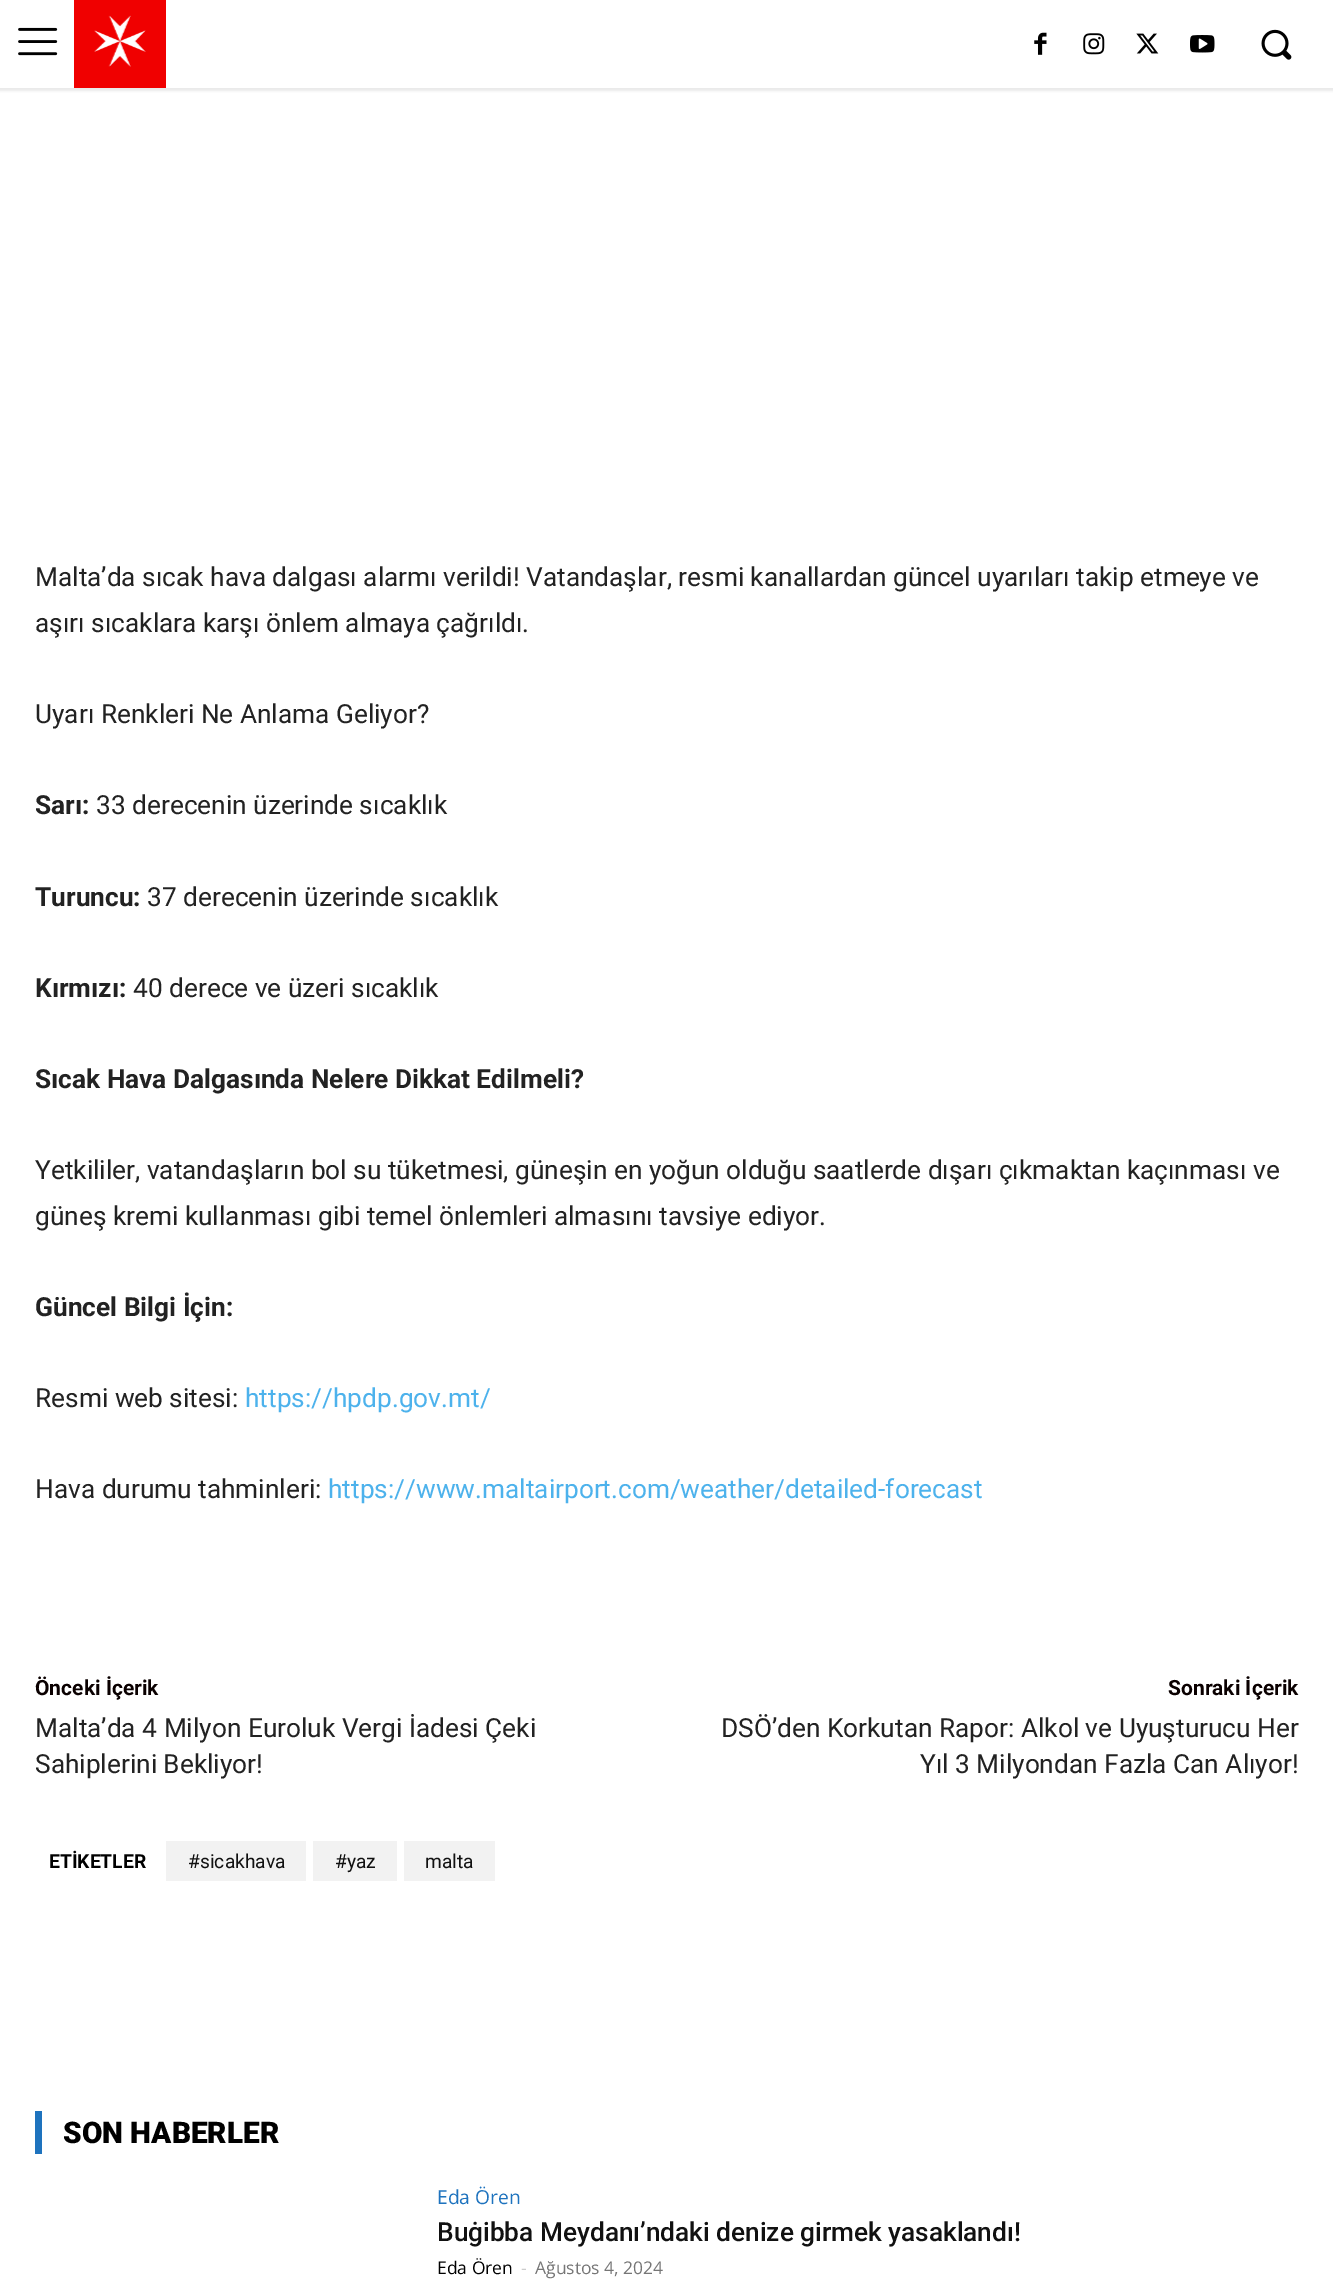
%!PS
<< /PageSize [1333 2283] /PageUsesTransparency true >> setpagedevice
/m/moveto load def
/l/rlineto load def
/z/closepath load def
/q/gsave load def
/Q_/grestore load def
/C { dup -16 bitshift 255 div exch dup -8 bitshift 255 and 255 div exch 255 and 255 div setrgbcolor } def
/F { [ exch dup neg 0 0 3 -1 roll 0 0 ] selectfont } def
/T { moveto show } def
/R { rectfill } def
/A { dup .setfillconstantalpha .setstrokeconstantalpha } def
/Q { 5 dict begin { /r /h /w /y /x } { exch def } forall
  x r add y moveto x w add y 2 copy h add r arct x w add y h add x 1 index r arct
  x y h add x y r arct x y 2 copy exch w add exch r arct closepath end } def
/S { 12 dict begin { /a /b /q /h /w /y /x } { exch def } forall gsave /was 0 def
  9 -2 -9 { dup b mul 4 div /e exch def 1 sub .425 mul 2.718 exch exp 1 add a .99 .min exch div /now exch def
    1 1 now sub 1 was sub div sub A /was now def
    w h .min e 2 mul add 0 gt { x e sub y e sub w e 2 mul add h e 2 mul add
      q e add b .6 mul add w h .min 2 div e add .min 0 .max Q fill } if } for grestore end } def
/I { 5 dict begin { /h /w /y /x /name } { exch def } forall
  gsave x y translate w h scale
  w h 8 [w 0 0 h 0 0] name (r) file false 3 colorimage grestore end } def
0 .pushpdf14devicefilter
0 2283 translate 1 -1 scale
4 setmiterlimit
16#FFFFFF C
0 0 1333 2283 R
(1.rgb) 18 27 40 29 I
16#F00000 C
74 0 92 88 R
(2.rgb) 94 15 52 52 I
(3.rgb) 1034 32 13 23 I
(4.rgb) 1083 33 22 22 I
(5.rgb) 1136 33 23 21 I
(6.rgb) 1190 35 25 18 I
(7.rgb) 1261 29 31 31 I
q
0 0 m 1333 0 l 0 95 l -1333 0 l z 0 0 m 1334 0 l 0 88 l -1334 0 l z eoclip newpath
16#000000 C
-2 0 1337 91 0 1 .08 S
Q_
/Roboto-Regular 26.25 F
16#222222 C
(Malta’da sıcak hava dalgası alarmı verildi! Vatandaşlar, resmi kanallardan güncel uyarıları takip etmeye ve) 35 586 T
(aşırı sıcaklara karşı önlem almaya çağrıldı.) 35 632 T
(Uyarı Renkleri Ne Anlama Geliyor?) 35 723 T
/Roboto-Bold 26.25 F
(Sarı:) 35 814 T
/Roboto-Regular 26.25 F
(33 derecenin üzerinde sıcaklık) 96 814 T
/Roboto-Bold 26.25 F
(Turuncu:) 35 906 T
/Roboto-Regular 26.25 F
(37 derecenin üzerinde sıcaklık) 147 906 T
/Roboto-Bold 26.25 F
(Kırmızı:) 35 997 T
/Roboto-Regular 26.25 F
(40 derece ve üzeri sıcaklık) 133 997 T
/Roboto-Bold 26.25 F
(Sıcak Hava Dalgasında Nelere Dikkat Edilmeli?) 35 1088 T
/Roboto-Regular 26.25 F
(Yetkililer, vatandaşların bol su tüketmesi, güneşin en yoğun olduğu saatlerde dışarı çıkmaktan kaçınması ve) 35 1179 T
(güneş kremi kullanması gibi temel önlemleri almasını tavsiye ediyor.) 35 1225 T
/Roboto-Bold 26.25 F
(Güncel Bilgi İçin:) 35 1316 T
/Roboto-Regular 26.25 F
(Resmi web sitesi:) 35 1407 T
16#4DB2EC C
(https://hpdp.gov.mt/) 245 1407 T
16#222222 C
(Hava durumu tahminleri:) 35 1498 T
16#4DB2EC C
(https://www.maltairport.com/weather/detailed-forecast) 328 1498 T
/Roboto-Bold 21 F
16#0A0000 C
(Önceki İçerik) 35 1695 T
/Roboto-Regular 26.25 F
16#222222 C
(Malta’da 4 Milyon Euroluk Vergi İadesi Çeki) 35 1737 T
(Sahiplerini Bekliyor!) 35 1773 T
/Roboto-Bold 21 F
16#0A0000 C
(Sonraki İçerik) 1168 1695 T
/Roboto-Regular 26.25 F
16#222222 C
(DSÖ’den Korkutan Rapor: Alkol ve Uyuşturucu Her) 721 1737 T
(Yıl 3 Milyondan Fazla Can Alıyor!) 920 1773 T
/Roboto-Bold 19.25 F
16#000000 C
(ETİKETLER) 49 1868 T
16#F2F2F2 C
166 1841 140 40 R
/Roboto-Regular 19.25 F
16#111111 C
(#sicakhava) 188 1868 T
16#F2F2F2 C
313 1841 84 40 R
16#111111 C
(#yaz) 335 1868 T
16#F2F2F2 C
404 1841 91 40 R
16#111111 C
(malta) 425 1868 T
16#1E73BE C
35 2111 7 43 R
/Roboto-Black 29.75 F
16#000000 C
(SON HABERLER) 63 2143 T
/OpenSans-Regular 19.25 F
16#1E73BE C
(Eda Ören) 437 2204 T
/Roboto-Medium 26.25 F
16#111111 C
(Buġibba Meydanı’ndaki denize girmek yasaklandı!) 437 2241 T
/OpenSans-Regular 17.5 F
16#000000 C
(Eda Ören) 437 2274 T
16#CCCCCC C
(-) 521 2274 T
16#767676 C
(Ağustos 4, 2024) 535 2274 T
.poppdf14devicefilter showpage
